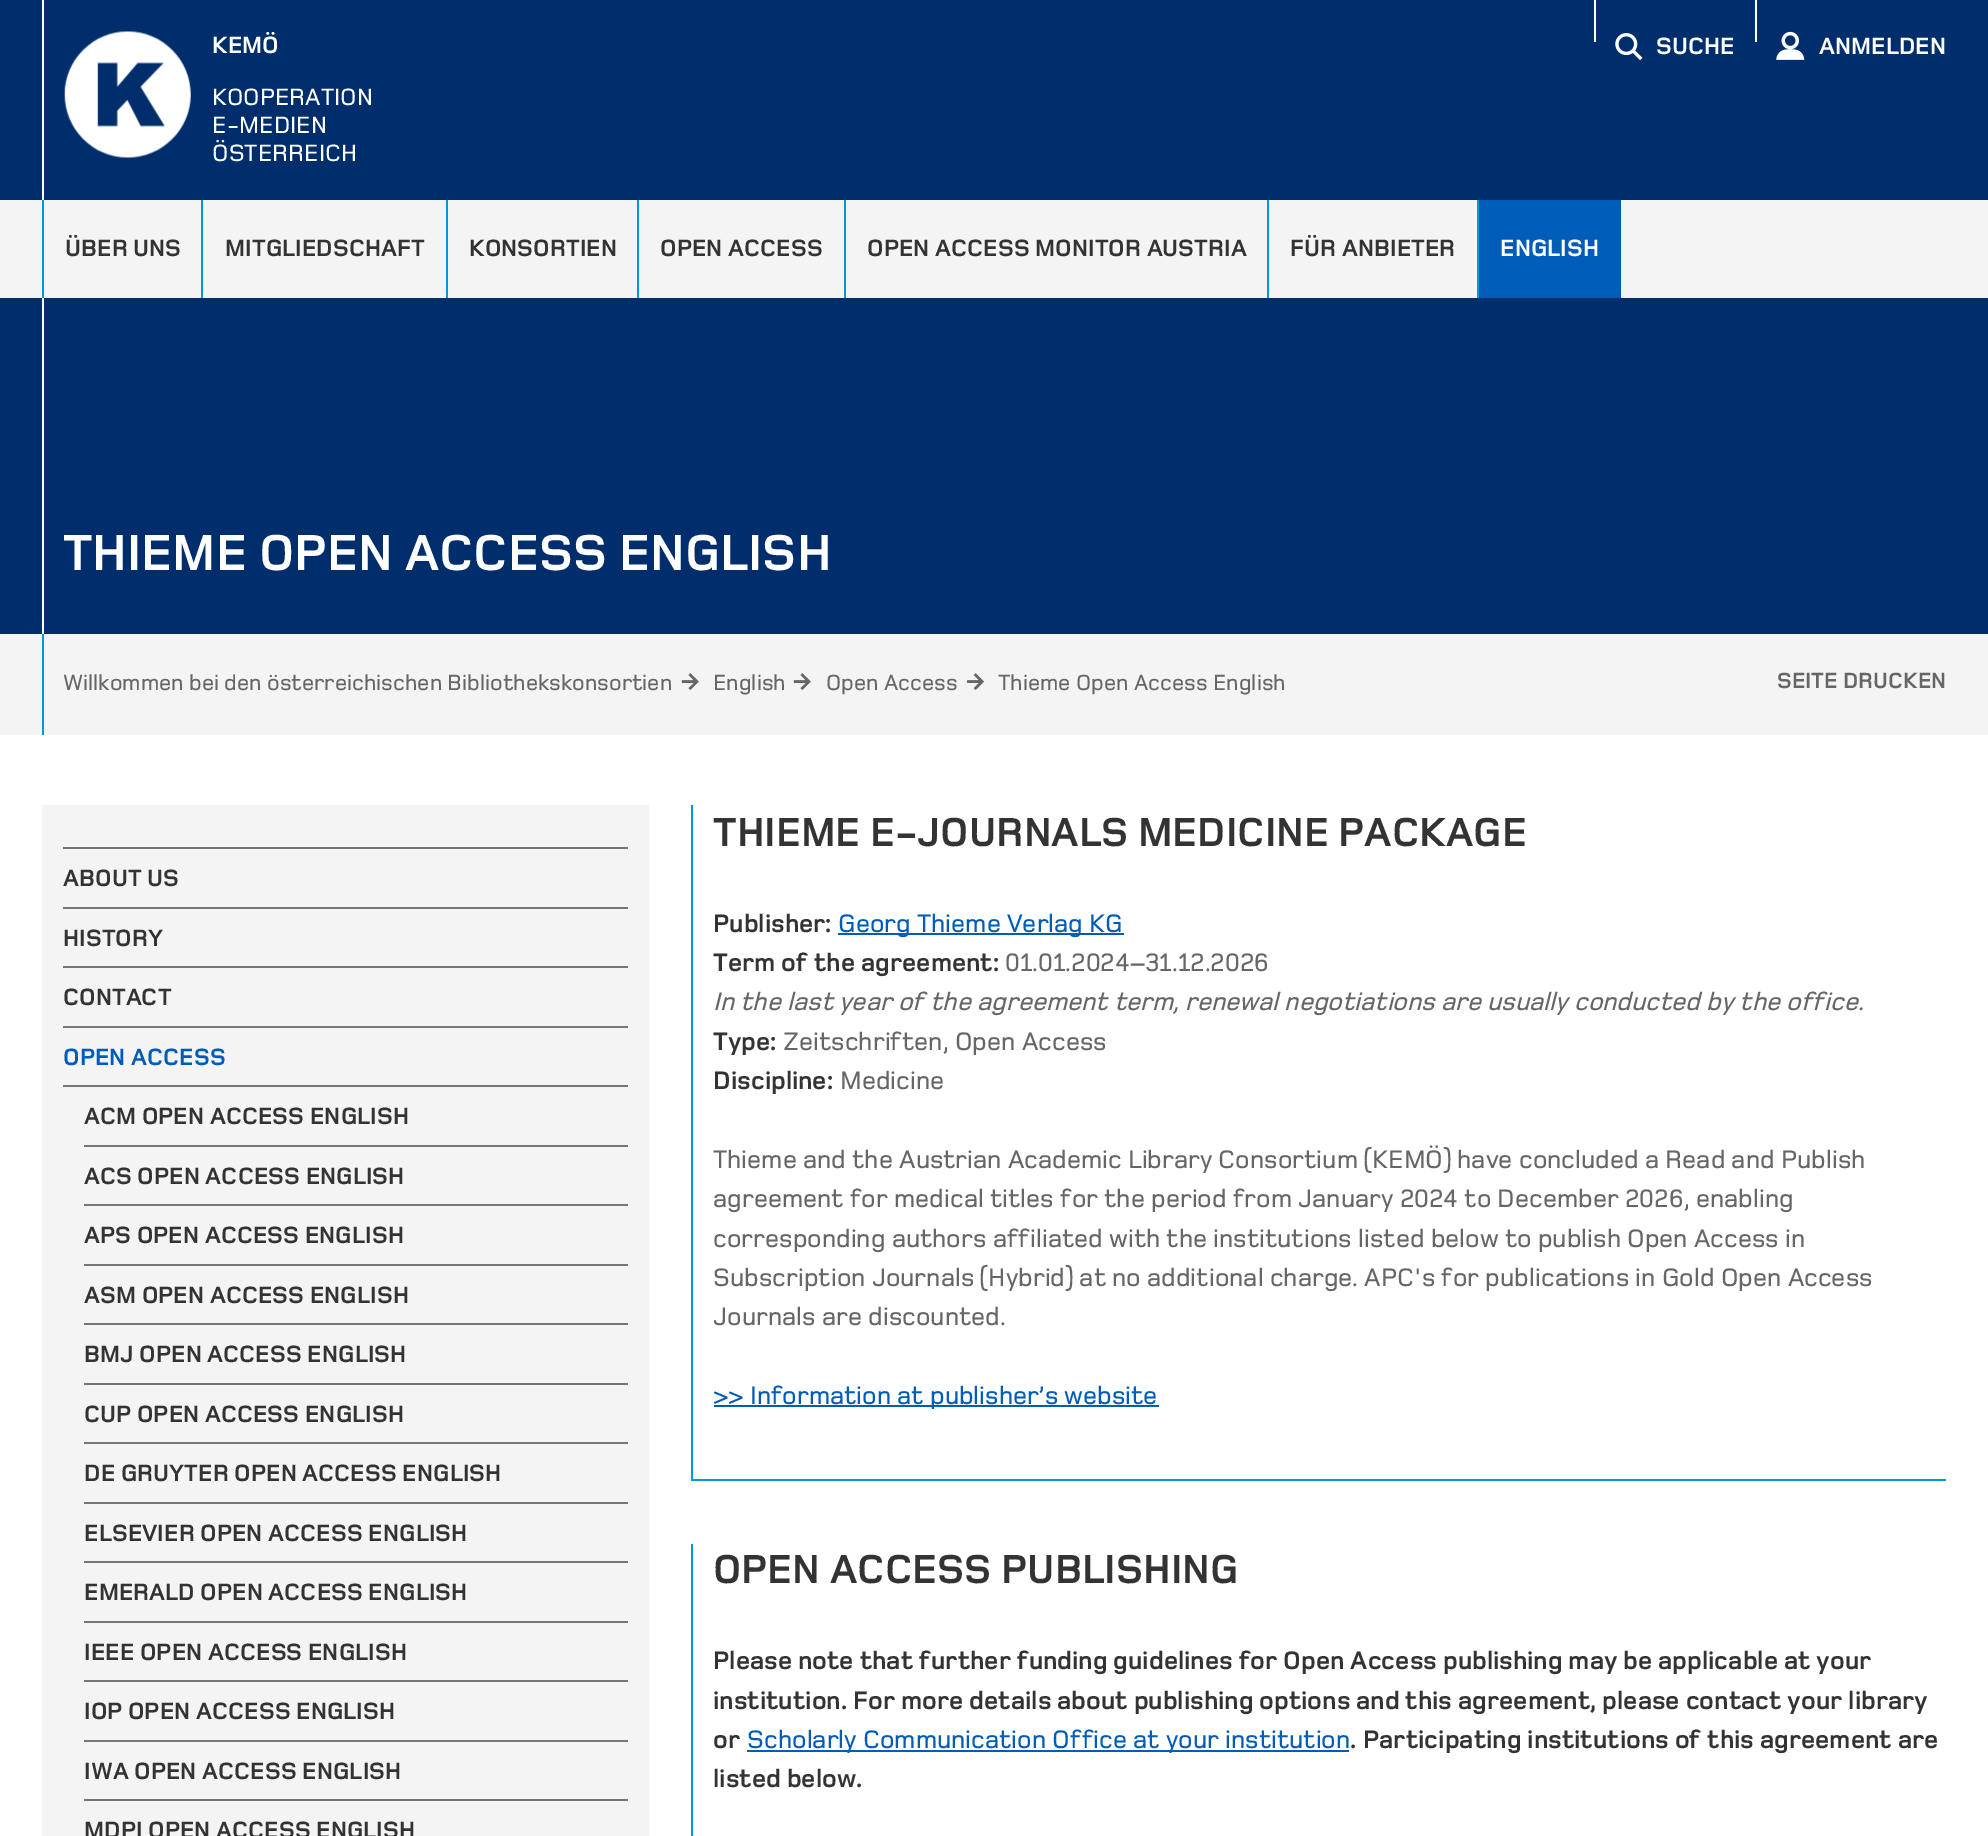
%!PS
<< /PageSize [1988 1836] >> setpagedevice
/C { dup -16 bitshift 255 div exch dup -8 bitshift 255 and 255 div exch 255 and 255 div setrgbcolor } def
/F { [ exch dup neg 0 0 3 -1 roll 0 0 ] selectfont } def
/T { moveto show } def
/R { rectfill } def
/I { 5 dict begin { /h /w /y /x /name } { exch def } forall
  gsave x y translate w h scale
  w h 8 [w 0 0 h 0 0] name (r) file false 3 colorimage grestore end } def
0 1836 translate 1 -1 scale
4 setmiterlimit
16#002E6D C
0 0 1988 1836 R
16#FFFFFF C
42 0 2 200 R
(1.rgb) 64 31 127 127 I
/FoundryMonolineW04-Bold 24.5 F
(KEMÖ) 212 53 T
/FoundryMonolineW04-Medium 24.5 F
(KOOPERATION) 212 105 T
(E-MEDIEN) 212 133 T
(ÖSTERREICH) 212 161 T
1594 0 2 42 R
(2.rgb) 1615 33 28 28 I
/FoundryMonolineW04-Bold 24.5 F
(SUCHE) 1656 54 T
1755 0 2 42 R
(3.rgb) 1776 31 29 29 I
(ANMELDEN) 1819 54 T
16#F4F4F5 C
0 200 1988 98 R
16#0099DB C
42 200 2 98 R
16#333333 C
(ÜBER UNS) 65 256 T
16#0099DB C
201 200 2 98 R
16#333333 C
(MITGLIEDSCHAFT) 225 256 T
16#0099DB C
446 200 2 98 R
16#333333 C
(KONSORTIEN) 469 256 T
16#0099DB C
637 200 2 98 R
16#333333 C
(OPEN ACCESS) 660 256 T
16#0099DB C
844 200 2 98 R
16#333333 C
(OPEN ACCESS MONITOR AUSTRIA) 867 256 T
16#0099DB C
1267 200 2 98 R
16#333333 C
(FÜR ANBIETER) 1290 256 T
16#0099DB C
1477 200 2 98 R
16#005CB9 C
1479 200 142 98 R
16#FFFFFF C
(ENGLISH) 1500 256 T
42 298 2 336 R
/FoundryMonolineW04-Bold 52.5 F
(THIEME OPEN ACCESS ENGLISH) 63 570 T
16#F4F4F5 C
0 634 1988 101 R
16#0099DB C
42 634 2 101 R
/FoundryMonolineW04-Medium 22.75 F
16#666666 C
(Willkommen bei den österreichischen Bibliothekskonsortien) 63 690 T
(4.rgb) 681 673 18 17 I
(English) 713 690 T
(4.rgb) 793 673 18 17 I
(Open Access) 826 690 T
(5.rgb) 967 673 17 17 I
(Thieme Open Access English) 998 690 T
/FoundryMonolineW04-Bold 22.75 F
(SEITE DRUCKEN) 1777 688 T
16#FFFFFF C
0 735 1988 1101 R
16#F4F4F5 C
42 805 607 1031 R
16#757578 C
63 847 565 2 R
/FoundryMonolineW04-Bold 24.5 F
16#333333 C
(ABOUT US) 63 886 T
16#757578 C
63 907 565 2 R
16#333333 C
(HISTORY) 63 946 T
16#757578 C
63 966 565 2 R
16#333333 C
(CONTACT) 63 1005 T
16#757578 C
63 1026 565 2 R
16#005CB9 C
(OPEN ACCESS) 63 1065 T
16#757578 C
63 1085 565 2 R
16#333333 C
(ACM OPEN ACCESS ENGLISH) 84 1124 T
16#757578 C
84 1145 544 2 R
16#333333 C
(ACS OPEN ACCESS ENGLISH) 84 1184 T
16#757578 C
84 1204 544 2 R
16#333333 C
(APS OPEN ACCESS ENGLISH) 84 1243 T
16#757578 C
84 1264 544 2 R
16#333333 C
(ASM OPEN ACCESS ENGLISH) 84 1303 T
16#757578 C
84 1323 544 2 R
16#333333 C
(BMJ OPEN ACCESS ENGLISH) 84 1362 T
16#757578 C
84 1383 544 2 R
16#333333 C
(CUP OPEN ACCESS ENGLISH) 84 1422 T
16#757578 C
84 1442 544 2 R
16#333333 C
(DE GRUYTER OPEN ACCESS ENGLISH) 84 1481 T
16#757578 C
84 1502 544 2 R
16#333333 C
(ELSEVIER OPEN ACCESS ENGLISH) 84 1541 T
16#757578 C
84 1561 544 2 R
16#333333 C
(EMERALD OPEN ACCESS ENGLISH) 84 1600 T
16#757578 C
84 1621 544 2 R
16#333333 C
(IEEE OPEN ACCESS ENGLISH) 84 1660 T
16#757578 C
84 1680 544 2 R
16#333333 C
(IOP OPEN ACCESS ENGLISH) 84 1719 T
16#757578 C
84 1740 544 2 R
16#333333 C
(IWA OPEN ACCESS ENGLISH) 84 1779 T
16#757578 C
84 1799 544 2 R
16#333333 C
(MDPI OPEN ACCESS ENGLISH) 84 1838 T
16#0099DB C
691 1479 1255 2 R
691 805 2 676 R
/FoundryMonolineW04-Bold 42 F
16#333333 C
(THIEME E-JOURNALS MEDICINE PACKAGE) 713 846 T
/FoundryMonolineW04-Bold 26.25 F
(Publisher:) 713 932 T
16#005CB9 C
838 933 286 2 R
/FoundryMonolineW04-Medium 26.25 F
(Georg Thieme Verlag KG) 838 932 T
/FoundryMonolineW04-Bold 26.25 F
16#333333 C
(Term of the agreement:) 713 971 T
/FoundryMonolineW04-Medium 26.25 F
16#666666 C
(01.01.2024–31.12.2026) 1005 971 T
/FoundryMonolineW04-MediumItalic 26.25 F
(In the last year of the agreement term, renewal negotiations are usually conducted by the office.) 713 1010 T
/FoundryMonolineW04-Bold 26.25 F
16#333333 C
(Type:) 713 1050 T
/FoundryMonolineW04-Medium 26.25 F
16#666666 C
(Zeitschriften, Open Access) 783 1050 T
/FoundryMonolineW04-Bold 26.25 F
16#333333 C
(Discipline:) 713 1089 T
/FoundryMonolineW04-Medium 26.25 F
16#666666 C
(Medicine) 840 1089 T
(Thieme and the Austrian Academic Library Consortium \(KEMÖ\) have concluded a Read and Publish) 713 1168 T
(agreement for medical titles for the period from January 2024 to December 2026, enabling) 713 1207 T
(corresponding authors affiliated with the institutions listed below to publish Open Access in) 713 1247 T
(Subscription Journals \(Hybrid\) at no additional charge. APC's for publications in Gold Open Access) 713 1286 T
(Journals are discounted.) 713 1325 T
16#005CB9 C
714 1405 445 2 R
(>> Information at publisher’s website) 713 1404 T
16#0099DB C
691 1544 2 292 R
/FoundryMonolineW04-Bold 42 F
16#333333 C
(OPEN ACCESS PUBLISHING) 713 1583 T
/FoundryMonolineW04-Bold 26.25 F
(Please note that further funding guidelines for Open Access publishing may be applicable at your) 713 1669 T
(institution. For more details about publishing options and this agreement, please contact your library) 713 1709 T
(or) 713 1748 T
16#005CB9 C
747 1750 602 2 R
/FoundryMonolineW04-Medium 26.25 F
(Scholarly Communication Office at your institution) 747 1748 T
/FoundryMonolineW04-Bold 26.25 F
16#333333 C
(.) 1350 1748 T
(Participating institutions of this agreement are) 1363 1748 T
(listed below.) 713 1787 T
showpage
